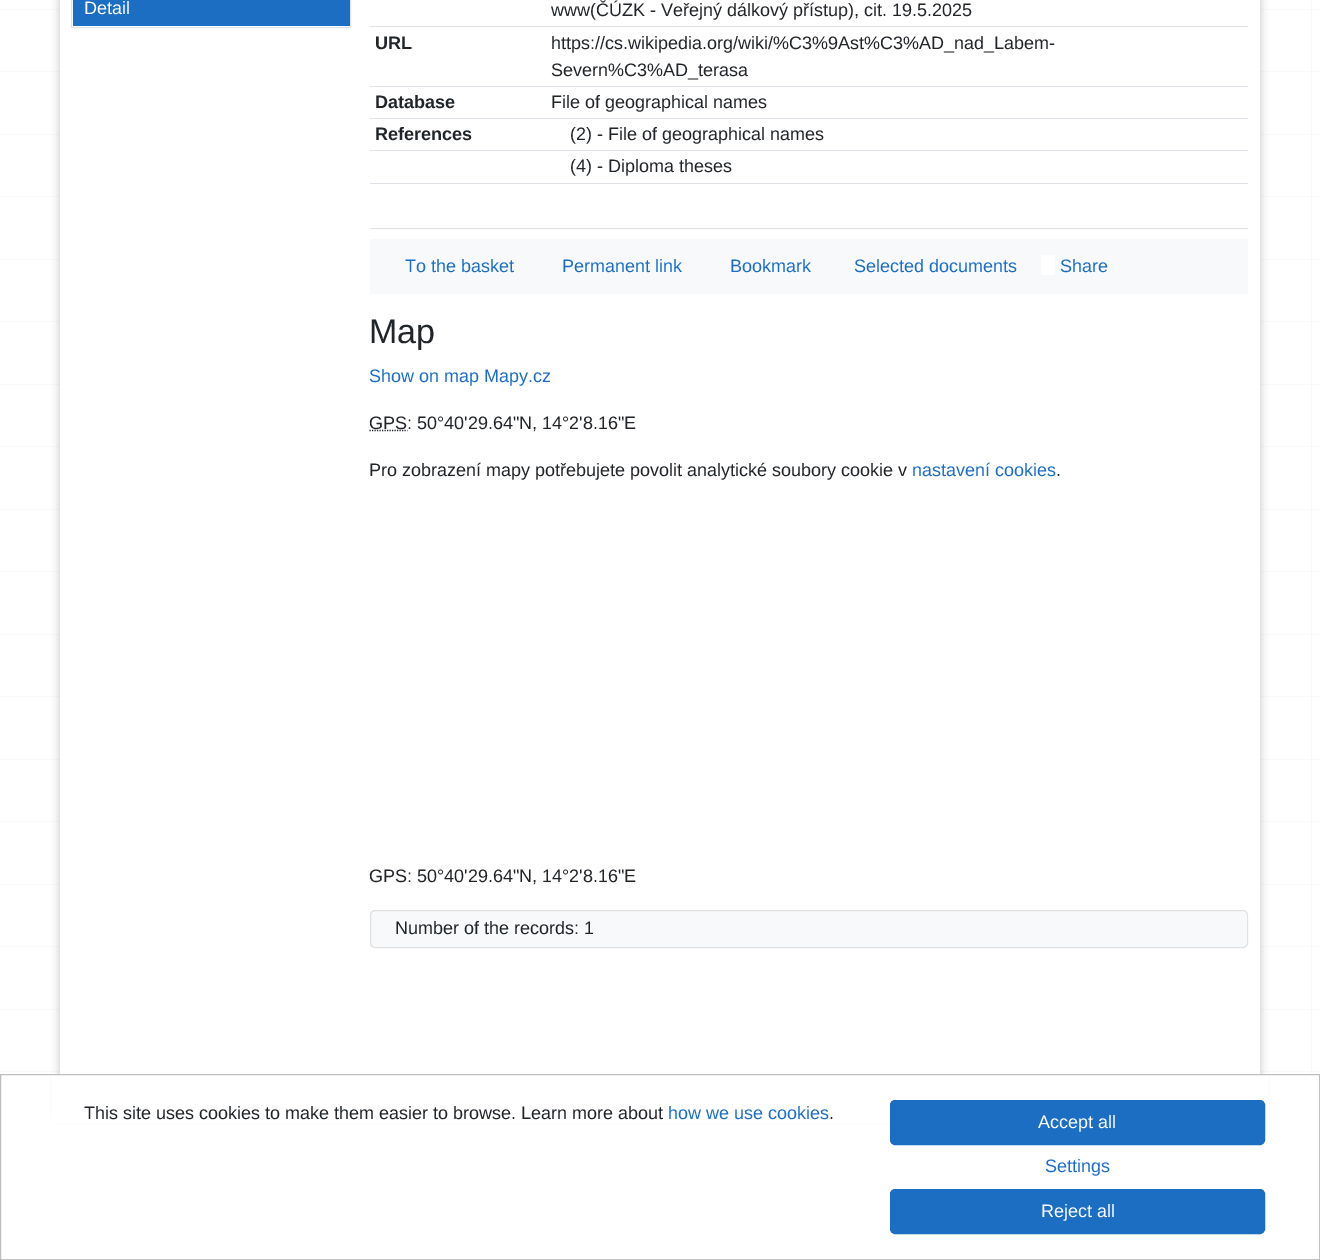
%!PS
<< /PageSize [1320 1260] /PageUsesTransparency true >> setpagedevice
/m/moveto load def
/l/rlineto load def
/f/fill load def
/s/stroke load def
/q/gsave load def
/Q_/grestore load def
/w/setlinewidth load def
/C { dup -16 bitshift 255 div exch dup -8 bitshift 255 and 255 div exch 255 and 255 div setrgbcolor } def
/F { [ exch dup neg 0 0 3 -1 roll 0 0 ] selectfont } def
/T { moveto show } def
/R { rectfill } def
/A { dup .setfillconstantalpha .setstrokeconstantalpha } def
/Q { 5 dict begin { /r /h /w /y /x } { exch def } forall
  x r add y moveto x w add y 2 copy h add r arct x w add y h add x 1 index r arct
  x y h add x y r arct x y 2 copy exch w add exch r arct closepath end } def
/S { 12 dict begin { /a /b /q /h /w /y /x } { exch def } forall gsave /was 0 def
  9 -2 -9 { dup b mul 4 div /e exch def 1 sub .425 mul 2.718 exch exp 1 add a .99 .min exch div /now exch def
    1 1 now sub 1 was sub div sub A /was now def
    w h .min e 2 mul add 0 gt { x e sub y e sub w e 2 mul add h e 2 mul add
      q e add b .6 mul add w h .min 2 div e add .min 0 .max Q fill } if } for grestore end } def
/I { 5 dict begin { /h /w /y /x /name } { exch def } forall
  gsave x y translate w h scale
  w h 8 [w 0 0 h 0 0] name (r) file false 3 colorimage grestore end } def
0 .pushpdf14devicefilter
0 1260 translate 1 -1 scale
4 setmiterlimit
16#FFFFFF C
0 0 1320 1260 R
(1.rgb) 1311 0 1 1074 I
(2.rgb) 0 9 1320 1063 I
16#000000 C
59 -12 1202 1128 0 4 .2 S
16#FFFFFF C
60 0 1200 1074 R
16#DEE2E6 C
71.5 -.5 279 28 rectstroke
16#1B6EC2 C
73 0 277 26 R
/LiberationSans-Regular 18 F
16#FFFFFF C
(Detail) 84 14 T
16#212529 C
(www\(ČÚZK - Veřejný dálkový přístup\), cit. 19.5.2025) 551 16 T
/LiberationSans-Bold 18 F
(URL) 375 49 T
16#DEE2E6 C
370 26 878 1 R
/LiberationSans-Regular 18 F
16#212529 C
(https://cs.wikipedia.org/wiki/%C3%9Ast%C3%AD_nad_Labem-) 551 49 T
(Severn%C3%AD_terasa) 551 76 T
/LiberationSans-Bold 18 F
(Database) 375 108 T
16#DEE2E6 C
370 86 878 1 R
/LiberationSans-Regular 18 F
16#212529 C
(File of geographical names) 551 108 T
/LiberationSans-Bold 18 F
(References) 375 140 T
16#DEE2E6 C
370 118 878 1 R
/LiberationSans-Regular 18 F
16#212529 C
(\(2\) - File of geographical names) 570 140 T
16#DEE2E6 C
370 150 878 1 R
16#212529 C
(\(4\) - Diploma theses) 570 172 T
16#DEE2E6 C
370 183 878 1 R
370 228 878 1 R
16#F8F9FA C
370 239 878 55 R
16#1B6EC2 C
(To the basket) 405 272 T
(Permanent link) 562 272 T
(Bookmark) 730 272 T
(Selected documents) 854 272 T
(Share) 1060 272 T
16#FFFFFF C
1041 255 14 20 R
/LiberationSans-Regular 34 F
16#212529 C
(Map) 369 343 T
/LiberationSans-Regular 18 F
16#1B6EC2 C
(Show on map Mapy.cz) 369 382 T
16#212529 C
1.2 w
[1.25 1.25] 0 setdash
369.5 430.5 m 38 0 l s
(GPS: 50°40'29.64"N, 14°2'8.16"E) 369 429 T
(Pro zobrazení mapy potřebujete povolit analytické soubory cookie v) 369 476 T
16#1B6EC2 C
(nastavení cookies) 912 476 T
16#212529 C
(.) 1056 476 T
(GPS: 50°40'29.64"N, 14°2'8.16"E) 369 882 T
16#F8F9FA C
370 910 878 38 5 Q f
0.12 A
16#333333 C
1 w
[] 0 setdash
370.5 910.5 877 37 4.5 Q s
1 A
16#212529 C
(Number of the records: 1) 395 934 T
16#FFFFFF C
52 1075 1216 48 R
16#C0C0C0 C
.5 1074.5 1319 185 rectstroke
16#212529 C
(This site uses cookies to make them easier to browse. Learn more about) 84 1119 T
16#1B6EC2 C
(how we use cookies) 668 1119 T
16#212529 C
(.) 829 1119 T
16#1B6EC2 C
890.5 1100.5 374 44 4.5 Q q f Q_
s
16#FFFFFF C
(Accept all) 1038 1128 T
16#1B6EC2 C
(Settings) 1045 1172 T
890.5 1189.5 374 44 4.5 Q q f Q_
s
16#FFFFFF C
(Reject all) 1041 1217 T
.poppdf14devicefilter showpage
